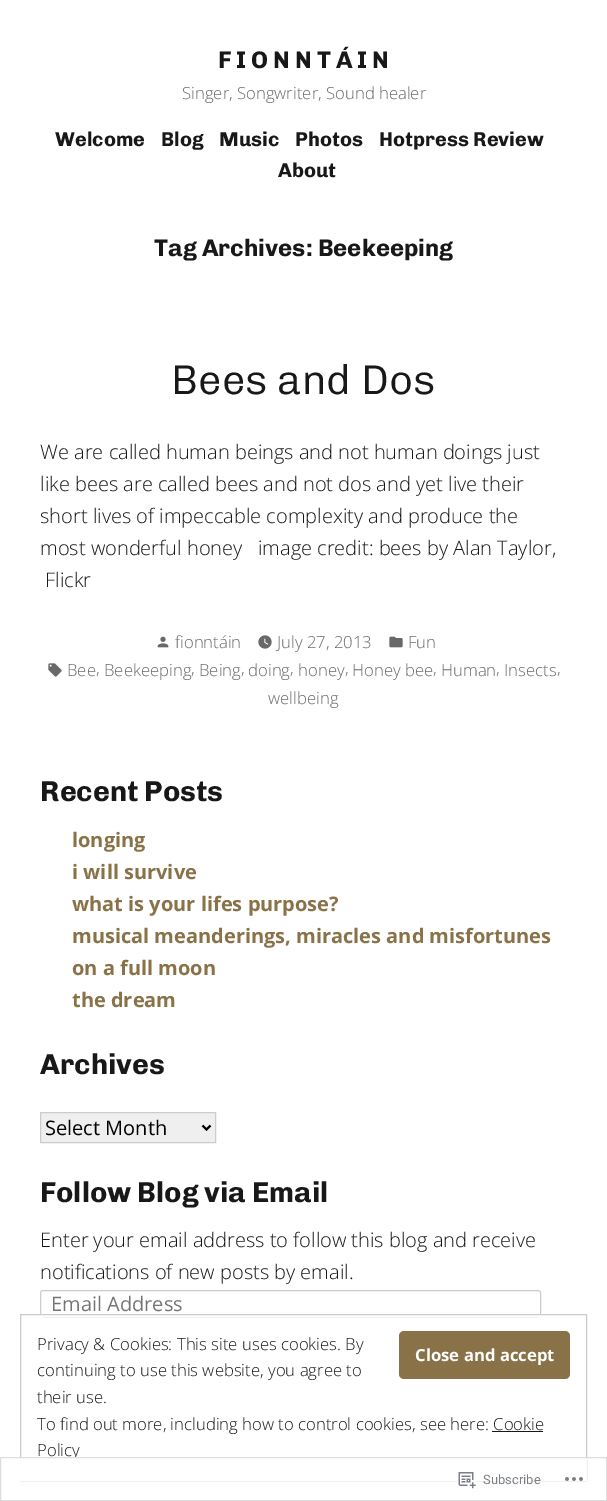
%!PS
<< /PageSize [607 1501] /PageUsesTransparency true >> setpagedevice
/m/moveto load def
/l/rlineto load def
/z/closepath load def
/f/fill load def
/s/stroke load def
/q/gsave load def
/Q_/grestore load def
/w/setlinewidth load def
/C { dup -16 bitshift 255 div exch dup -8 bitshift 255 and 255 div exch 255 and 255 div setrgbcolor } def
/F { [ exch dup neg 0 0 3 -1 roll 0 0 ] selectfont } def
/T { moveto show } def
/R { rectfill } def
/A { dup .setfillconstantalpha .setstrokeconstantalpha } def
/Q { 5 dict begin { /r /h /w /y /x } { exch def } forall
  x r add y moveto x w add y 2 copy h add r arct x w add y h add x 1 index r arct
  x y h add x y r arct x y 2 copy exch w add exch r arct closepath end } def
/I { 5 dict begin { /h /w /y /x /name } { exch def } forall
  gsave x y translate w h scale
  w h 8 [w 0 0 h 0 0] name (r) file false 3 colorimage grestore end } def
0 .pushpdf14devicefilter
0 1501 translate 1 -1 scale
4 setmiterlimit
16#FFFFFF C
0 0 607 1501 R
/Chivo-Bold 24 F
16#181818 C
(F I O N N T Á I N) 218 68 T
/OpenSans-Light 16.7 F
16#686868 C
(Singer, Songwriter, Sound healer) 182 99 T
/Chivo-Bold 20 F
16#181818 C
(Welcome) 55 146 T
(Blog) 161 146 T
(Music) 219 146 T
(Photos) 295 146 T
(Hotpress Review) 379 146 T
(About) 278 177 T
/Chivo-Bold 24 F
(Tag Archives: Beekeeping) 154 256 T
/Chivo-Light 41.5 F
(Bees and Dos) 171 394 T
/OpenSans-Light 20 F
(We are called human beings and not human doings just) 40 459 T
(like bees are called bees and not dos and yet live their) 40 491 T
(short lives of impeccable complexity and produce the) 40 523 T
(most wonderful honey   image credit: bees by Alan Taylor,) 40 555 T
(Flickr) 45 587 T
(1.rgb) 157 636 12 12 I
/OpenSans-Light 16.7 F
16#686868 C
(fionntáin) 175 648 T
(2.rgb) 258 635 14 14 I
(July 27, 2013) 277 648 T
(3.rgb) 389 636 14 12 I
(Fun) 408 648 T
(4.rgb) 48 663 14 14 I
(Bee) 67 676 T
(,) 96 674 T
(Beekeeping) 104 676 T
(,) 191 674 T
(Being) 199 676 T
(,) 241 674 T
(doing) 248 676 T
(,) 290 674 T
(honey) 298 676 T
(,) 345 674 T
(Honey bee) 352 676 T
(,) 433 674 T
(Human) 441 676 T
(,) 496 674 T
(Insects) 504 676 T
(,) 557 674 T
(wellbeing) 268 704 T
/Chivo-Bold 28.75 F
16#181818 C
(Recent Posts) 40 801 T
/OpenSans-Bold 20 F
16#897248 C
(longing) 72 847 T
(i will survive) 72 879 T
(what is your lifes purpose?) 72 911 T
(musical meanderings, miracles and misfortunes) 72 943 T
(on a full moon) 72 975 T
(the dream) 72 1007 T
/Chivo-Bold 28.75 F
16#181818 C
(Archives) 40 1074 T
16#EFEFEF C
40.5 1112.5 m 175 0 l 0 30 l -175 0 l z q f Q_
16#CCCCCC C
s
16#000000 C
2 w
202.5 1125.5 m 4 4 l 4 -4 l s
/OpenSans-Regular 20 F
(Select Month) 45 1135 T
/Chivo-Bold 28.75 F
16#181818 C
(Follow Blog via Email) 40 1202 T
/OpenSans-Light 20 F
(Enter your email address to follow this blog and receive) 40 1247 T
(notifications of new posts by email.) 40 1279 T
16#CCCCCC C
1 w
40.5 1290.5 500 26 2.5 Q s
/OpenSans-Regular 20 F
16#757575 C
(Email Address) 51 1311 T
16#FFFFFF C
40 1315 501 2 R
16#CCCCCC C
20.5 1314.5 566 166 rectstroke
/OpenSans-Light 16.7 F
16#181818 C
(Privacy & Cookies: This site uses cookies. By) 37 1350 T
16#897248 C
399 1331 171 48 5 Q f
/OpenSans-Bold 16.7 F
16#FFFFFF C
(Close and accept) 415 1361 T
/OpenSans-Light 16.7 F
16#181818 C
(continuing to use this website, you agree to) 37 1376 T
(their use.) 37 1403 T
(To find out more, including how to control cookies, see here: Cookie) 37 1430 T
37 1457 43 1 R
(Policy) 37 1456 T
492 1431 51 1 R
0.98 A
16#FFFFFF C
20 1457 567 24 R
16#DCDCDE C
.5 1457.5 606 43 rectstroke
1 A
(5.rgb) 458 1472 18 17 I
/Roboto-Regular 13 F
16#7B7F84 C
(Subscribe) 483 1484 T
(6.rgb) 565 1477 18 4 I
.poppdf14devicefilter showpage
